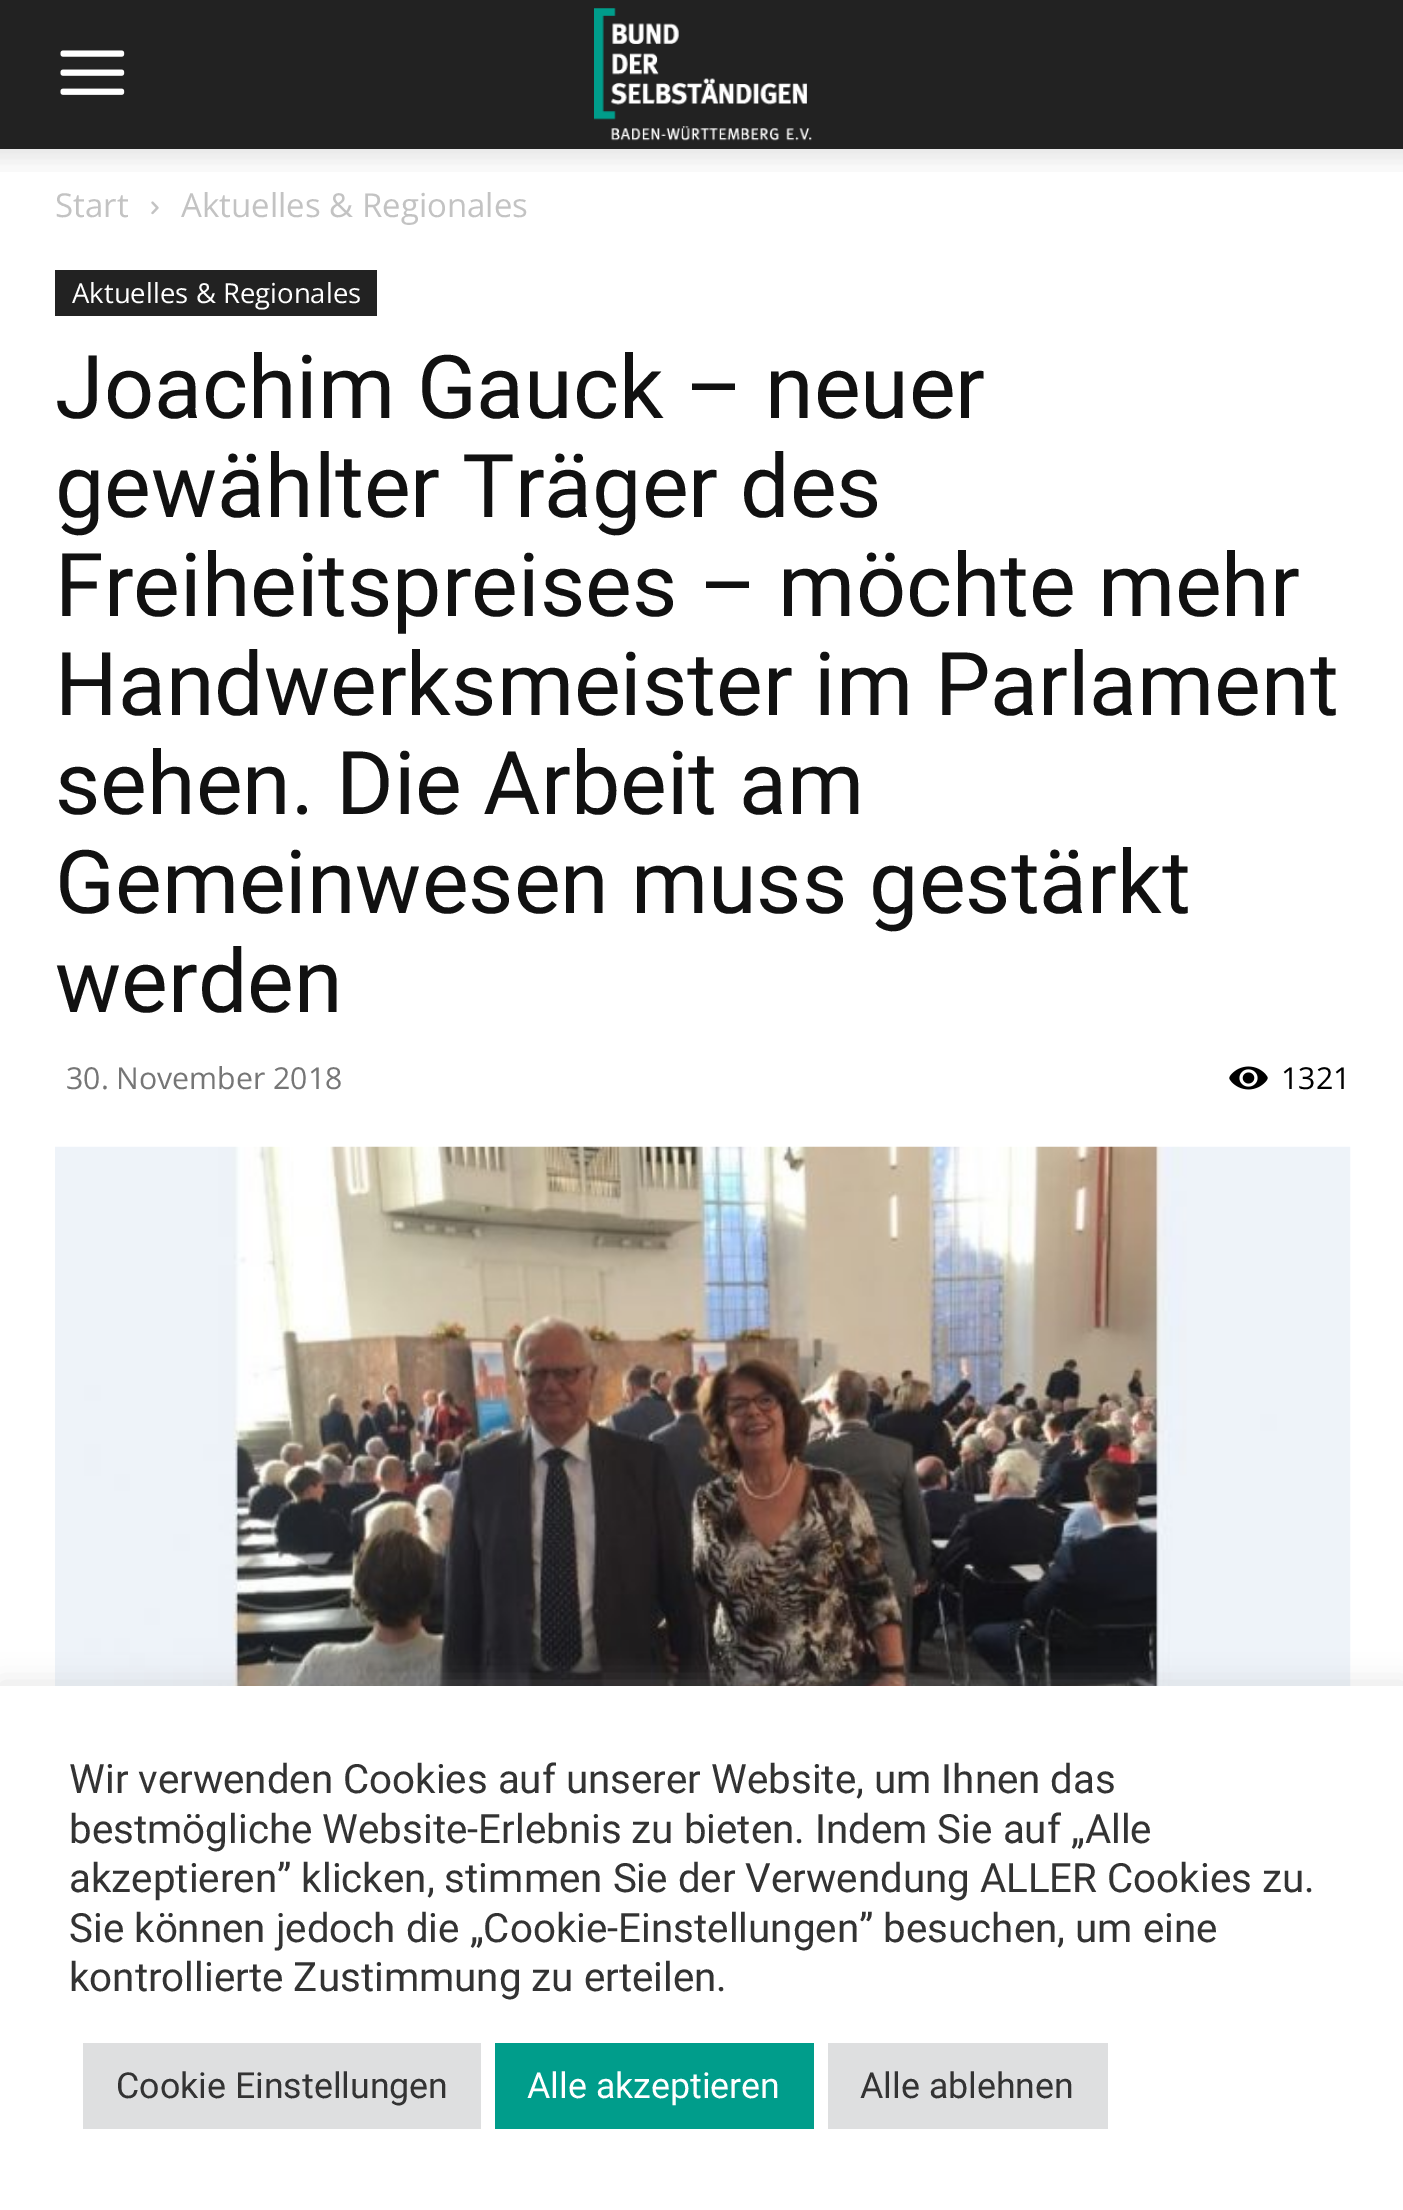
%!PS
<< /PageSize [1403 2210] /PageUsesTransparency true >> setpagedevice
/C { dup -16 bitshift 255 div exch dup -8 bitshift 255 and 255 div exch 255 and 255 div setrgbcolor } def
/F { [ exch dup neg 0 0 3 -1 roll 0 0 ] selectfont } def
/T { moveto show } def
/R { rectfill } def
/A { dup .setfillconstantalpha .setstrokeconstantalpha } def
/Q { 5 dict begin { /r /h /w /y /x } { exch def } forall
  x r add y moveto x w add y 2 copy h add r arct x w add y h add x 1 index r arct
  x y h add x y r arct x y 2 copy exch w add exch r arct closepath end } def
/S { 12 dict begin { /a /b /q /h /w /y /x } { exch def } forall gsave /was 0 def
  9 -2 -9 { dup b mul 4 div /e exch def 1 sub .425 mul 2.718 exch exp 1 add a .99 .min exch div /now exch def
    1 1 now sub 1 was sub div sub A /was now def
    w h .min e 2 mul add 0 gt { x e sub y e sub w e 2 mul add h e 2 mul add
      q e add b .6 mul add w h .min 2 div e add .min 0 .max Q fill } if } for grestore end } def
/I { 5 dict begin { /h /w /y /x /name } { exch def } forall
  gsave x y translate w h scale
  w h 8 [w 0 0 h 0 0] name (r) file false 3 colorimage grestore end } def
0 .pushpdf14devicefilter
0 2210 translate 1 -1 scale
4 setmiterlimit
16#FFFFFF C
0 0 1403 2210 R
16#222222 C
0 0 1403 149 R
(1.rgb) 60 50 65 45 I
(2.rgb) 594 8 218 133 I
(3.rgb) 0 149 1403 23 I
/OpenSans-Regular 33 F
16#C3C3C3 C
(Start) 55 217 T
(4.rgb) 151 201 8 14 I
(Aktuelles & Regionales) 181 217 T
16#222222 C
55 270 322 46 R
/OpenSans-Regular 27.5 F
16#FFFFFF C
(Aktuelles & Regionales) 72 303 T
/Roboto-Regular 88 F
16#111111 C
(Joachim Gauck – neuer) 55 418 T
(gewählter Träger des) 55 517 T
(Freiheitspreises – möchte mehr) 55 616 T
(Handwerksmeister im Parlament) 55 715 T
(sehen. Die Arbeit am) 55 814 T
(Gemeinwesen muss gestärkt) 55 913 T
(werden) 55 1012 T
/OpenSans-Regular 30.25 F
16#767676 C
(30. November 2018) 66 1089 T
(5.rgb) 1229 1066 39 24 I
16#000000 C
(1321) 1281 1089 T
(6.rgb) 55 1146 1296 540 I
16#ACABAB C
0 1683 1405 525 0 14 .3 S
16#FFFFFF C
0 1686 1403 524 R
/Roboto-Regular 40.3 F
16#333333 C
(Wir verwenden Cookies auf unserer Website, um Ihnen das) 69 1793 T
(bestmögliche Website-Erlebnis zu bieten. Indem Sie auf „Alle) 69 1843 T
(akzeptieren” klicken, stimmen Sie der Verwendung ALLER Cookies zu.) 69 1892 T
(Sie können jedoch die „Cookie-Einstellungen” besuchen, um eine) 69 1942 T
(kontrollierte Zustimmung zu erteilen.) 69 1991 T
16#DEDFE0 C
83 2043 398 86 R
/Roboto-Regular 35.75 F
16#333333 C
(Cookie Einstellungen) 116 2098 T
16#009D8B C
495 2043 319 86 R
16#FFFFFF C
(Alle akzeptieren) 527 2098 T
16#DEDFE0 C
828 2043 280 86 R
16#333333 C
(Alle ablehnen) 860 2098 T
.poppdf14devicefilter showpage
